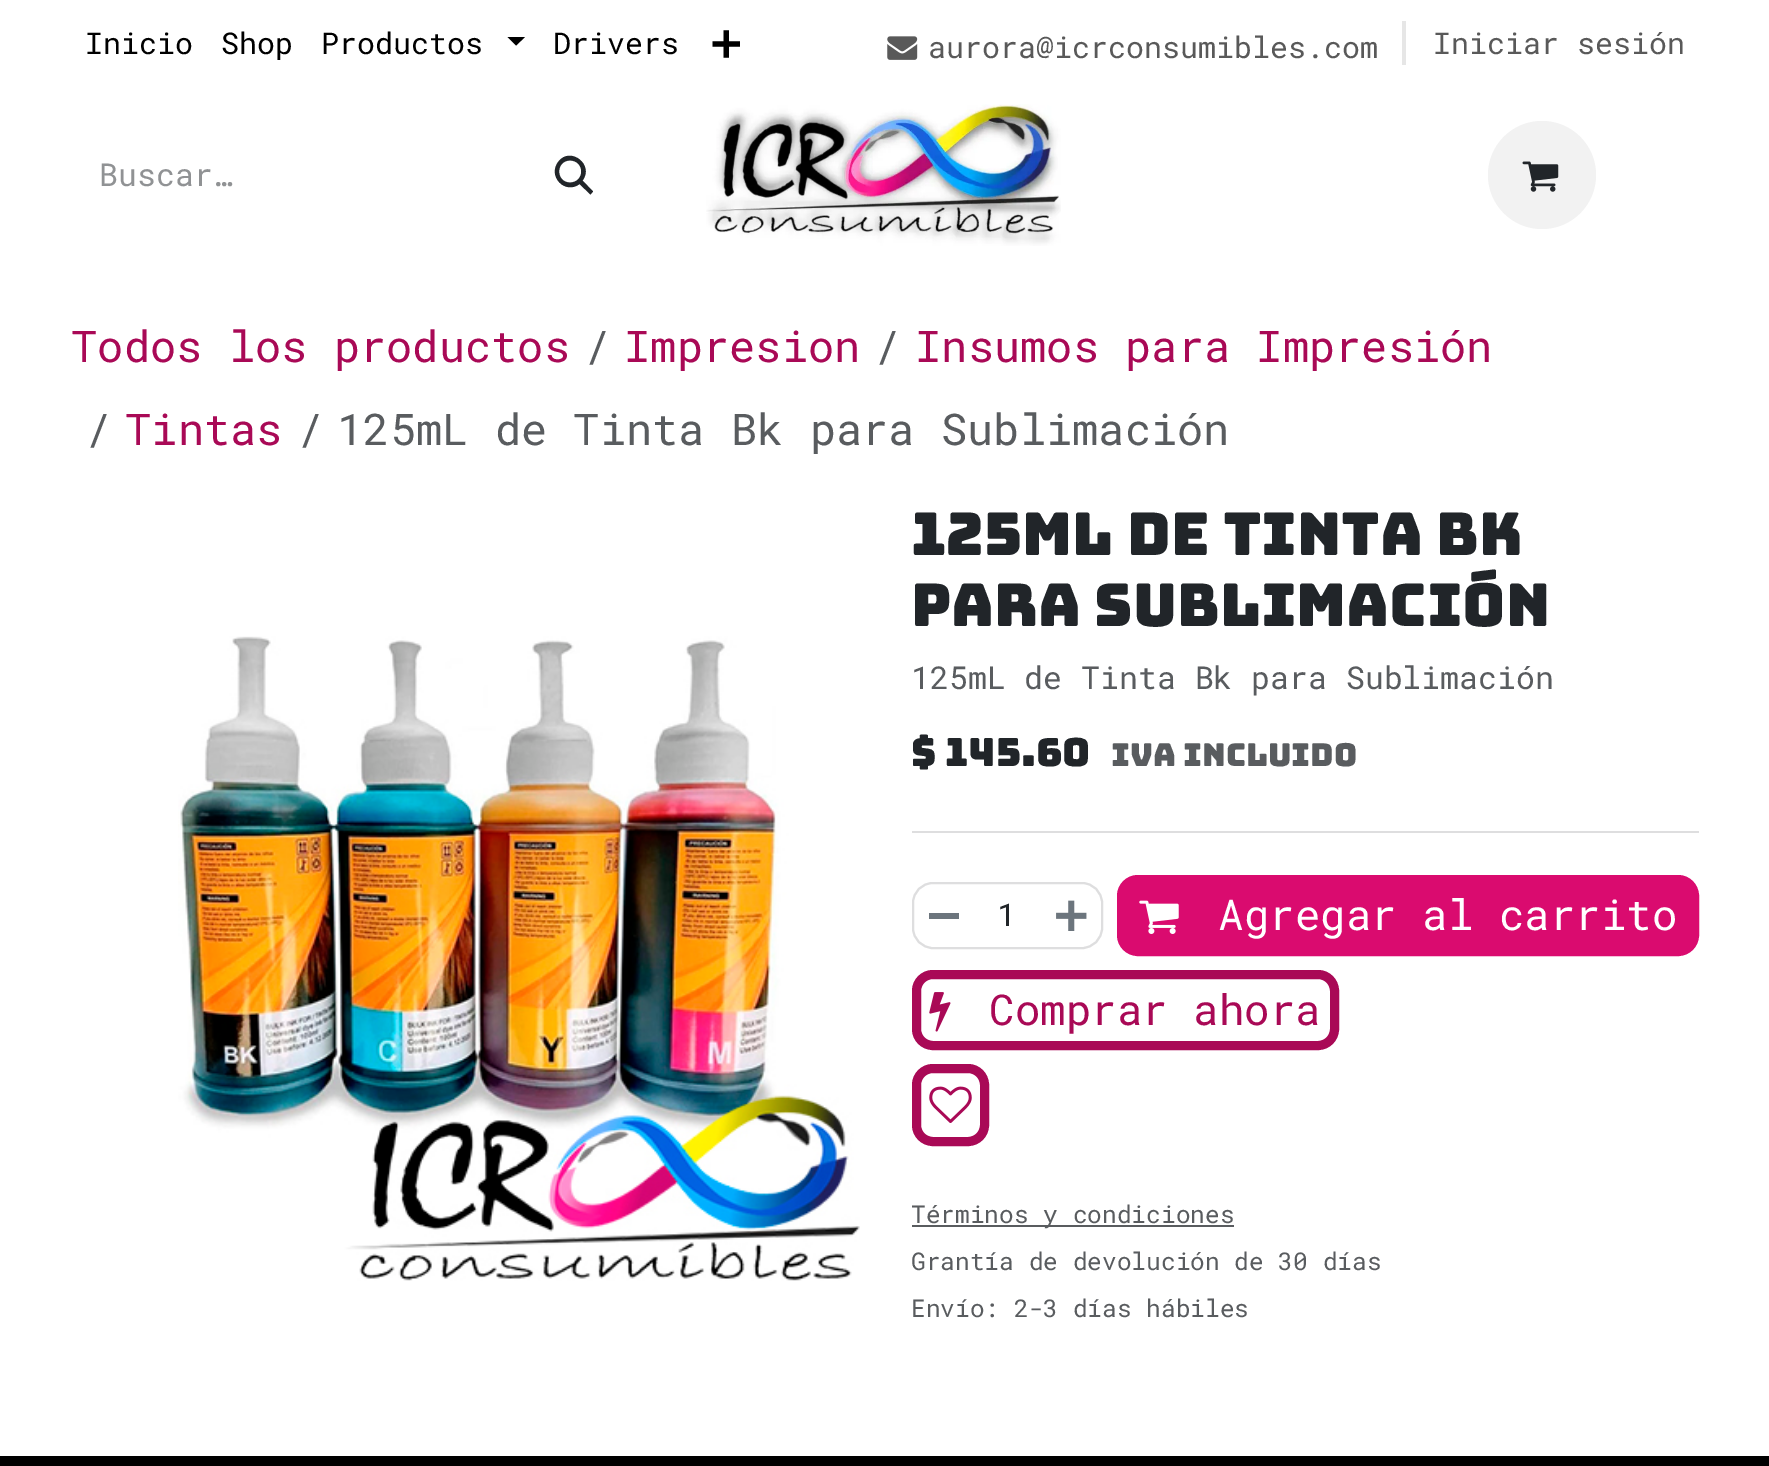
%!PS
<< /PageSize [1769 1466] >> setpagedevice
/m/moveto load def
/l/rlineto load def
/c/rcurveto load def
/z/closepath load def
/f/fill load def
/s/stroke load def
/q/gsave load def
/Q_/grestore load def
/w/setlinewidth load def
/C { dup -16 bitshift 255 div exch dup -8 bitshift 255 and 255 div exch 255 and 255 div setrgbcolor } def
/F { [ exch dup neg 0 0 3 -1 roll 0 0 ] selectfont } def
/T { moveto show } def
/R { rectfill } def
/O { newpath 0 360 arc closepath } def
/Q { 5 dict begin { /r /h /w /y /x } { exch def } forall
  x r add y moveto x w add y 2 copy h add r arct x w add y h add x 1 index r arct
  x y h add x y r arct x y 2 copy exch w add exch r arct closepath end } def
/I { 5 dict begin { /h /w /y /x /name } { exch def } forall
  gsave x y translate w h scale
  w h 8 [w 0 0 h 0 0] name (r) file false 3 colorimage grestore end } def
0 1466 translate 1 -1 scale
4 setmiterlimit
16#FFFFFF C
0 0 1769 1466 R
/RobotoMono-Regular 30 F
16#000000 C
(Inicio) 85 54 T
(Shop) 221 54 T
(Productos) 321 54 T
507.5 37 m 17.5 0 l -9 8.5 l z f
(Drivers) 553 54 T
(1.rgb) 712 30 28 28 I
(2.rgb) 887 36 31 24 I
16#595959 C
(aurora@icrconsumibles.com) 928 58 T
16#E6E6E6 C
1402 21 4 44 R
16#595959 C
(Iniciar sesión) 1433 54 T
/RobotoMono-Regular 31.5 F
16#909294 C
(Buscar…) 99 186 T
16#212529 C
558.5 161.5 m 12 -15.5 36 3.5 24 19 c 10.5 11 l -2.5 3 l -11 -10.5 l -14.5 11 -32.5 -8 -21 -22.5 c z 570 160.5 m -14.5 0 -14.5 22 0 22 c 15 0 15 -22 0 -22 c z f
(3.rgb) 706 104 355 142 I
16#F2F2F2 C
1542 175 54 O f
(4.rgb) 1522 161 37 31 I
/RobotoMono-Regular 43.75 F
16#A90956 C
(Todos los productos) 71 362 T
16#595C5F C
(/) 584 362 T
16#A90956 C
(Impresion) 624 362 T
16#595C5F C
(/) 874 362 T
16#A90956 C
(Insumos para Impresión) 915 362 T
16#595C5F C
(/) 85 445 T
16#A90956 C
(Tintas) 125 445 T
16#595C5F C
(/) 297 445 T
(125mL de Tinta Bk para Sublimación) 337 445 T
(5.rgb) 178 636 682 645 I
/Bungee-Regular 59 F
16#212529 C
(125mL de Tinta Bk) 911 555 T
(para Sublimación) 911 626 T
/RobotoMono-Regular 31.5 F
16#595C5F C
(125mL de Tinta Bk para Sublimación) 911 689 T
/Bungee-Regular 38.75 F
16#212529 C
($ 145.60) 911 766 T
/Bungee-Regular 31.5 F
16#595C5F C
(IVA incluido) 1111 766 T
16#DEDEDF C
912 831 787 2 R
2 w
913 883 189 65 20 Q s
16#6C757D C
929 913 30 6 R
/RobotoMono-Regular 31.5 F
16#212529 C
(1) 997 926 T
(6.rgb) 1056 900 31 31 I
16#DA0B6F C
1121.5 879.5 573 72 16.5 Q q f Q_
9 w
s
(7.rgb) 1139 900 40 34 I
/RobotoMono-Regular 42.5 F
16#FFFFFF C
(Agregar al carrito) 1218 930 T
16#A90956 C
916.5 974.5 418 71 16.5 Q s
(8.rgb) 929 992 22 40 I
(Comprar ahora) 989 1025 T
916.5 1068.5 68 73 16.5 Q s
(9.rgb) 929 1086 43 37 I
16#595C5F C
912 1225 322 2 R
/RobotoMono-Regular 24.5 F
(Términos y condiciones) 911 1223 T
(Grantía de devolución de 30 días) 911 1270 T
(Envío: 2-3 días hábiles) 911 1317 T
16#000000 C
0 1456 1769 10 R
showpage
